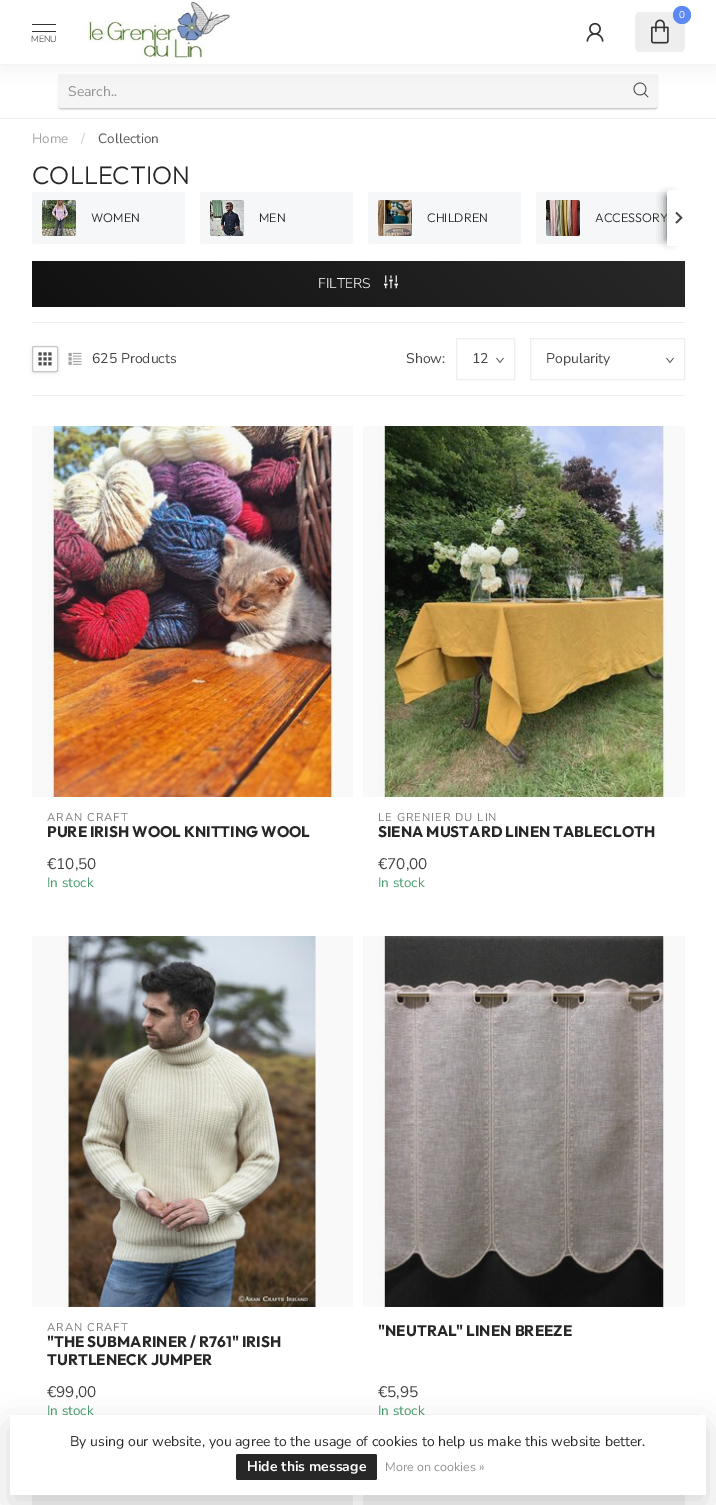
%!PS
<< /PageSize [716 1505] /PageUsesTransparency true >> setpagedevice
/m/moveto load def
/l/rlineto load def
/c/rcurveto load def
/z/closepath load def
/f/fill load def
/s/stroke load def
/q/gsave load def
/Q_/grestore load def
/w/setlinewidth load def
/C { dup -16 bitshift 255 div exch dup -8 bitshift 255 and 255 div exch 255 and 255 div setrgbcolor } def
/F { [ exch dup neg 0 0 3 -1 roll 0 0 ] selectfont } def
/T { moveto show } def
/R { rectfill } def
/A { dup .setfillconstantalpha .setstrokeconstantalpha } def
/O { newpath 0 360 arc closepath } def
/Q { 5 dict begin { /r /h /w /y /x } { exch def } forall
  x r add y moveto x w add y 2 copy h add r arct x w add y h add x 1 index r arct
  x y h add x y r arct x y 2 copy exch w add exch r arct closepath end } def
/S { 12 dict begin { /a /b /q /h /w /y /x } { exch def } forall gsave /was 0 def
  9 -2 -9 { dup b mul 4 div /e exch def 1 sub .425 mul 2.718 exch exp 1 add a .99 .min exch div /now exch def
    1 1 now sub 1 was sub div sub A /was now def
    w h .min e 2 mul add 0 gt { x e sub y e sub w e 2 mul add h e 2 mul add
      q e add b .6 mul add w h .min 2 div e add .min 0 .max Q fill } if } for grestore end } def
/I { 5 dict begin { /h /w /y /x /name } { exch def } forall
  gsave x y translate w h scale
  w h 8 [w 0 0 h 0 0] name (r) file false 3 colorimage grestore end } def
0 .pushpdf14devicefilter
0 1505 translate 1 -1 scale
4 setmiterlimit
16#FFFFFF C
0 0 716 1505 R
16#9B9B9B C
59 77 598 32 2 1 .75 S
16#FFFFFF C
58 74 600 34 3 Q f
0.05 A
16#333333 C
58 74 600 34 R
1 A
(4.rgb) 633 82 16 16 I
16#000000 C
0 0 716 64 0 10 .07 S
16#FFFFFF C
0 0 716 64 R
(1.rgb) 86 1 145 62 I
16#EEEEEE C
635 12 50 40 5 Q f
16#5C89F5 C
682 15 9 O f
/NunitoSans-Regular 10 F
16#FFFFFF C
(0) 679 18 T
(2.rgb) 651 19 18 25 I
(3.rgb) 586 22 18 20 I
16#333333 C
32 24 24 1 R
32 31 24 1 R
/NunitoSans-Light 9 F
(MENU) 31 42 T
16#EEEEEE C
0 118 716 1 R
/NunitoSans-Regular 14 F
16#929292 C
(Search..) 68 96 T
/NunitoSans-Regular 13.5 F
16#A2A2A2 C
(Home) 32 143 T
16#C7C7C7 C
(/) 81 143 T
16#575757 C
(Collection) 98 143 T
/Outfit-Light 25.25 F
16#272727 C
(COLLECTION) 32 184 T
16#F5F7F8 C
32 192 153 52 3 Q f
(5.rgb) 42 200 34 36 I
/Outfit-Light 12.5 F
16#272727 C
(WOMEN) 91 222 T
16#F5F7F8 C
200 192 153 52 3 Q f
(6.rgb) 210 200 34 36 I
16#272727 C
(MEN) 259 222 T
16#F5F7F8 C
368 192 153 52 3 Q f
(7.rgb) 378 200 34 36 I
16#272727 C
(CHILDREN) 427 222 T
16#F5F7F8 C
539 192 m 146 0 l 0 52 l -146 0 l -1.5 0 -3 -1.5 -3 -3 c 0 -46 l 0 -1.5 1.5 -3 3 -3 c z f
(8.rgb) 546 200 34 36 I
16#272727 C
(ACCESSORY) 595 222 T
16#444444 C
667 197 4 42 0 5 1 S
16#FFFFFF C
670 190 m 15 0 l 0 56 l -15 0 l -1.5 0 -3 -1.5 -3 -3 c 0 -50 l 0 -1.5 1.5 -3 3 -3 c z f
(9.rgb) 675 211 8 13 I
q 32 261 653 46 2 Q clip newpath
<< /ShadingType 2 /ColorSpace /DeviceRGB /Coords [184 459 533 109] /Extend [true true] /Function << /FunctionType 2 /Domain [0 1] /C0 [.067 .067 .067] /C1 [.157 .157 .157] /N 1 >> >> shfill Q_
/NunitoSans-Light 14 F
(FILTERS) 318 288 T
(10.rgb) 384 275 14 14 I
16#EEEEEE C
32 322 653 1 R
32 395 653 1 R
q
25 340 m 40 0 l 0 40 l -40 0 l z 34 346 m 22 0 l 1 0 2 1 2 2 c 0 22 l 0 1 -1 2 -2 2 c -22 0 l -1 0 -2 -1 -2 -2 c 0 -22 l 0 -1 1 -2 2 -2 c z eoclip newpath
16#000000 C
32 347 26 26 2 2 .1 S
Q_
16#C6C6C6 C
32.5 346.5 25 25 1.5 Q s
(11.rgb) 38 352 14 14 I
(12.rgb) 68 352 14 13 I
/NunitoSans-Regular 14 F
16#444444 C
(625 Products) 92 363 T
(Show:) 406 363 T
16#595959 C
.7 w
503.5 358 m -3.5 4.5 l -3.5 -4.5 l s
16#EEEEEE C
1 w
456.5 338.5 58 41 rectstroke
16#444444 C
(12) 472 363 T
16#595959 C
.7 w
673.5 358 m -3.5 4.5 l -3.5 -4.5 l s
16#EEEEEE C
1 w
530.5 338.5 154 41 rectstroke
16#444444 C
(Popularity) 546 363 T
(13.rgb) 47 426 287 371 I
0.06 A
16#9B9B9B C
32 426 321 371 R
/NunitoSans-Regular 11.25 F
1 A
16#7C7C7C C
47 821 m 1 0 (ARAN CRAFT) ashow
/Outfit-Bold 15.4 F
16#272727 C
(PURE IRISH WOOL KNITTING WOOL) 47 837 T
/NunitoSans-Regular 15.4 F
16#444444 C
(€10,50) 47 869 T
/NunitoSans-Regular 13.5 F
16#489C6D C
(In stock) 47 887 T
(14.rgb) 378 426 287 371 I
0.06 A
16#9B9B9B C
363 426 322 371 R
/NunitoSans-Regular 11.25 F
1 A
16#7C7C7C C
378 821 m 1 0 (LE GRENIER DU LIN) ashow
/Outfit-Bold 15.4 F
16#272727 C
(SIENA MUSTARD LINEN TABLECLOTH) 378 837 T
/NunitoSans-Regular 15.4 F
16#444444 C
(€70,00) 378 869 T
/NunitoSans-Regular 13.5 F
16#489C6D C
(In stock) 378 887 T
(15.rgb) 64 936 253 371 I
0.06 A
16#9B9B9B C
32 936 321 371 R
/NunitoSans-Regular 11.25 F
1 A
16#7C7C7C C
47 1331 m 1 0 (ARAN CRAFT) ashow
/Outfit-Bold 15.4 F
16#272727 C
("THE SUBMARINER / R761" IRISH) 47 1347 T
(TURTLENECK JUMPER) 47 1365 T
/NunitoSans-Regular 15.4 F
16#444444 C
(€99,00) 47 1397 T
/NunitoSans-Regular 13.5 F
16#489C6D C
(In stock) 47 1415 T
(16.rgb) 379 936 286 371 I
0.06 A
16#9B9B9B C
363 936 322 371 R
/Outfit-Bold 15.4 F
1 A
16#272727 C
("NEUTRAL" LINEN BREEZE) 378 1336 T
/NunitoSans-Regular 15.4 F
16#444444 C
(€5,95) 378 1397 T
/NunitoSans-Regular 13.5 F
16#489C6D C
(In stock) 378 1415 T
16#F6F6F6 C
32 1495 321 10 R
0.06 A
16#9B9B9B C
32 1495 321 10 R
1 A
16#F6F6F6 C
363 1495 322 10 R
0.06 A
16#9B9B9B C
363 1495 322 10 R
1 A
16#000000 C
10 1425 696 80 2 15 .15 S
16#FFFFFF C
10 1415 696 80 2 Q f
/NunitoSans-Regular 14 F
16#272727 C
(By using our website, you agree to the usage of cookies to help us make this website better.) 70 1446 T
236 1454 141 26 2 Q f
/NunitoSans-Bold 14 F
16#FFFFFF C
(Hide this message) 247 1471 T
/NunitoSans-Regular 12.5 F
16#929292 C
(More on cookies ») 385 1471 T
.poppdf14devicefilter showpage
